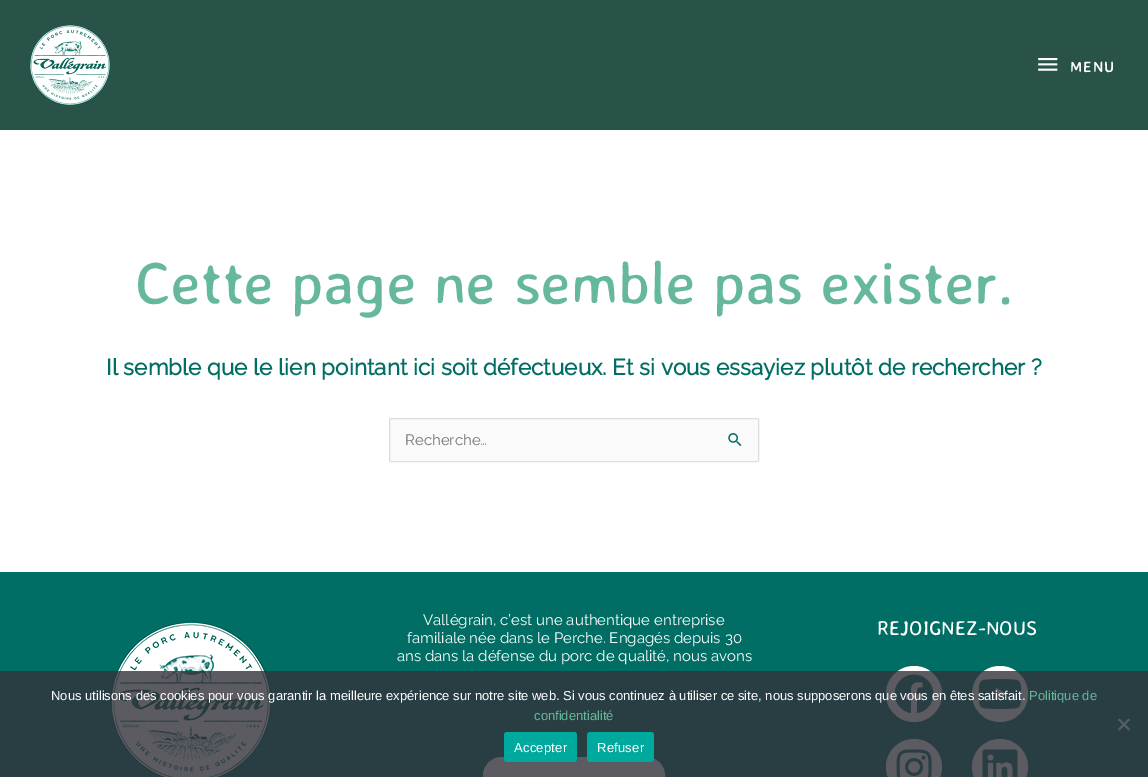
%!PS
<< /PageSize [1148 777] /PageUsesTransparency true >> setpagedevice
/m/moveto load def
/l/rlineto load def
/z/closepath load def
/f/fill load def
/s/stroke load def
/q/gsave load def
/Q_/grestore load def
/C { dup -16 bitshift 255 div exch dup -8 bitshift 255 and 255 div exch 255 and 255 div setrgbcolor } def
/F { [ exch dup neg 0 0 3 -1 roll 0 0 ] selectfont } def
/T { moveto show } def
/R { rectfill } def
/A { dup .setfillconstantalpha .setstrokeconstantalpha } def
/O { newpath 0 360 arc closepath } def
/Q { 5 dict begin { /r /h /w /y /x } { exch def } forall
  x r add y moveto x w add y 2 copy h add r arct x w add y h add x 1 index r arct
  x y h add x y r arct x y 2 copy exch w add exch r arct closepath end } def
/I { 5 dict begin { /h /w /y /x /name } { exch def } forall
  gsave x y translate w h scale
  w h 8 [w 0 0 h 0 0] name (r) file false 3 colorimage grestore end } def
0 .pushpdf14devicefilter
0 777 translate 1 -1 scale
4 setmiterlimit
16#FFFFFF C
0 0 1148 777 R
16#295349 C
0 0 1148 130 R
(1.rgb) 29 24 82 82 I
(2.rgb) 1038 58 20 13 I
/AveriaSansLibre-Bold 15 F
16#FFFFFF C
1070 72 m 1 0 (MENU) ashow
/AveriaSansLibre-Regular 60 F
16#66B89A C
(Cette page ne semble pas exister.) 135 304 T
/Raleway-Bold 22.5 F
16#006E64 C
(Il semble que le lien pointant ici soit défectueux. Et si vous essayiez plutôt de rechercher ?) 106 375 T
16#FAFAFA C
389.5 418.5 369 43 1.5 Q q f Q_
16#DDDDDD C
s
/Raleway-Thin 15 F
16#757575 C
(Recherche…) 405 445 T
(3.rgb) 728 433 14 13 I
16#006E64 C
0 572 1148 205 R
(4.rgb) 110 621 162 156 I
16#FFFFFF C
(Vallégrain, c’est une authentique entreprise) 423 625 T
(familiale née dans le Perche. Engagés depuis 30) 407 643 T
(ans dans la défense du porc de qualité, nous avons) 397 661 T
483.5 757.5 181 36 18 Q q f Q_
s
/AveriaSansLibre-Regular 20 F
(REJOIGNEZ-NOUS) 877 635 T
914 694 28 O f
(5.rgb) 894 674 40 40 I
1000 694 28 O f
(6.rgb) 978 679 44 30 I
914 767 28 O f
(7.rgb) 896 749 36 28 I
1000 767 28 O f
(8.rgb) 982 749 36 28 I
0.8 A
16#32323A C
0 671 1148 106 R
/LiberationSans-Regular 13 F
1 A
16#FFFFFF C
(Nous utilisons des cookies pour vous garantir la meilleure expérience sur notre site web. Si vous continuez à utiliser ce site, nous supposerons que vous en êtes satisfait.) 51 700 T
16#66B89A C
(Politique de) 1029 700 T
(confidentialité) 534 720 T
16#545F61 C
1128.5 718.5 m 1.5 1.5 l -10.5 10.5 l -1.5 -1.5 l z f
1118 720 m 1.5 -1.5 l 10.5 10.5 l -1.5 1.5 l z f
16#00A99D C
504 732 73 30 3 Q f
16#FFFFFF C
514 752 m .25 0 (Accepter) ashow
16#00A99D C
587 732 67 30 3 Q f
16#FFFFFF C
597 752 m .25 0 (Refuser) ashow
.poppdf14devicefilter showpage
